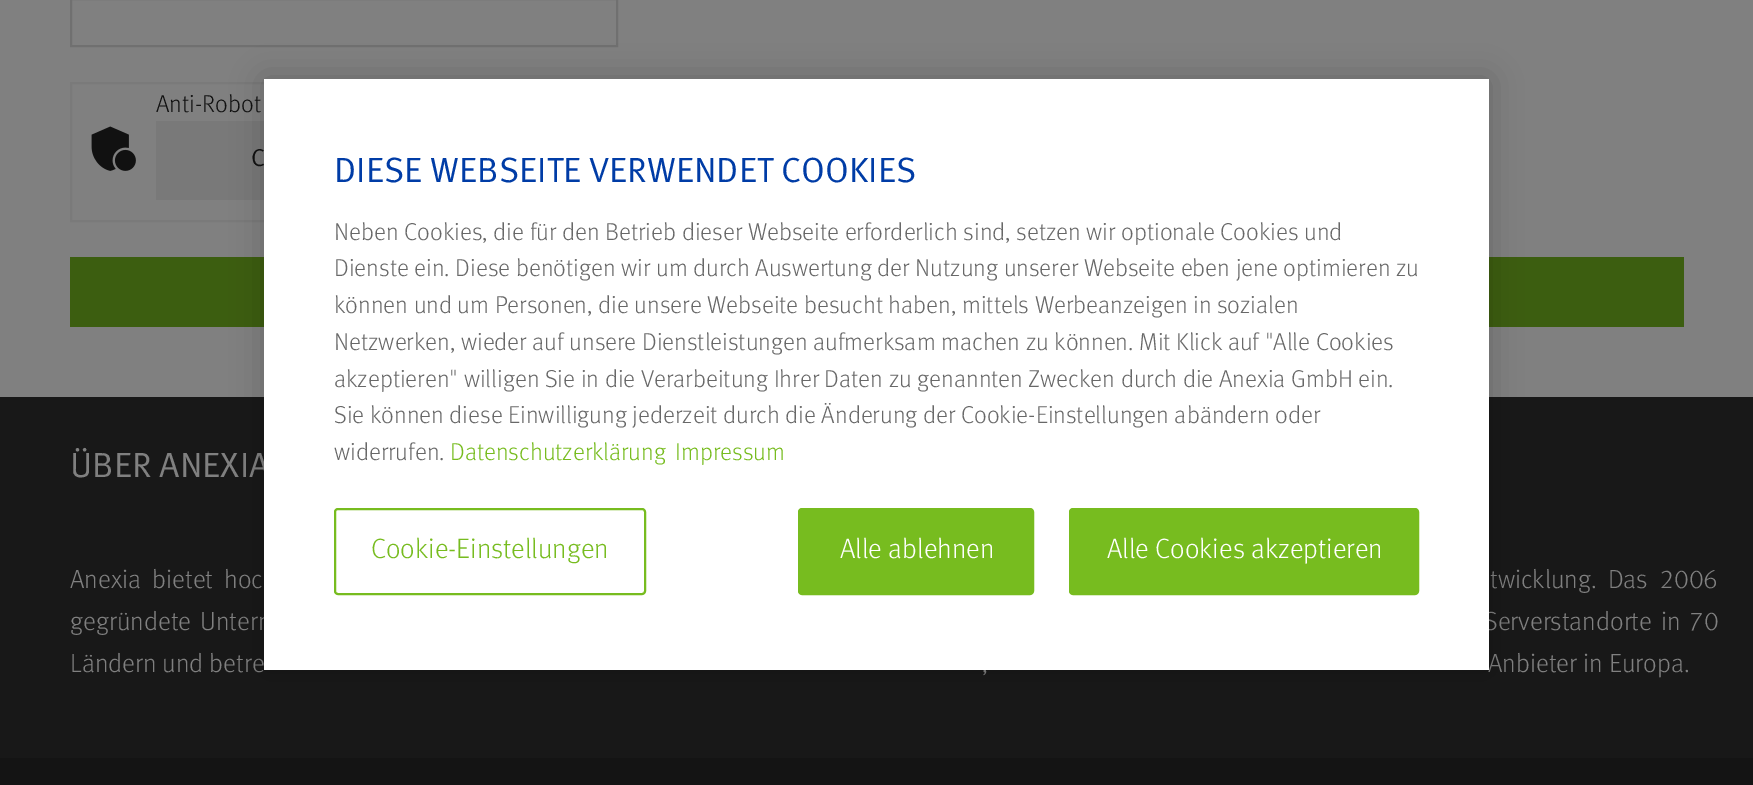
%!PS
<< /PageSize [1753 785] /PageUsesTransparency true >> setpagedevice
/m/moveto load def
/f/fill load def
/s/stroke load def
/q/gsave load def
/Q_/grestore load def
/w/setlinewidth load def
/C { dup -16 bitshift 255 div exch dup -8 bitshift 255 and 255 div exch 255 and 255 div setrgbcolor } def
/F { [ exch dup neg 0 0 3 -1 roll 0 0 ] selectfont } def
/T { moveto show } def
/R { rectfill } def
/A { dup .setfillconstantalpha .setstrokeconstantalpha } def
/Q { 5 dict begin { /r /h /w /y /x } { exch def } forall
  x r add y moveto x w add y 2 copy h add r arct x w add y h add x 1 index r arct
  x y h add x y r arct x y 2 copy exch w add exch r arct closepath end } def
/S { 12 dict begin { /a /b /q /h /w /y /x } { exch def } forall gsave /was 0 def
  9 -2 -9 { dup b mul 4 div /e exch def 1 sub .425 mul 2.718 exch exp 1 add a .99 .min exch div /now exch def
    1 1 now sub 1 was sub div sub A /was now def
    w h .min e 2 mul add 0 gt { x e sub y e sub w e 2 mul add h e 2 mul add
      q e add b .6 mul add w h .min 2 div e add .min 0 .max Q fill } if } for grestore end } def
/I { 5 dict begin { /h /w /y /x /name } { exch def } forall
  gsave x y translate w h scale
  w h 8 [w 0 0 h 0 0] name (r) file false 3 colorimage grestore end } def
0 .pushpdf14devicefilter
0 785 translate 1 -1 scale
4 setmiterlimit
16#808080 C
0 0 1753 785 R
16#707070 C
2 w
71 -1 546 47 rectstroke
16#7A7A7A C
71 83 544 138 rectstroke
(1.rgb) 91 126 45 45 I
/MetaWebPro-Regular 24.5 F
16#111111 C
(Anti-Robot) 156 112 T
16#797979 C
156 121 108 79 R
/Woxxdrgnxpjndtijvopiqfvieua-Regular 24.5 F
16#111111 C
(C) 251 166 T
16#3C5E10 C
70 257 1614 70 R
16#181818 C
0 397 1753 361 R
/Woxxdrgnxpjndtijvopiqfvieua-Regular 35 F
16#808080 C
(ÜBER ANEXIA) 70 477 T
/MetaWebPro-Regular 26.25 F
70 588 m 5 0 32 (Anexia bietet hoc) widthshow
1490 588 m 5 0 32 (twicklung. Das 2006) widthshow
70 630 m 3 0 32 (gegründete Untern) widthshow
1484 630 m 3 0 32 (Serverstandorte in 70) widthshow
(Ländern und betre) 70 672 T
(,) 982 672 T
(Anbieter in Europa.) 1488 672 T
16#141414 C
0 758 1753 27 R
16#000000 C
264 79 1225 591 0 16 .2 S
16#FFFFFF C
264 79 1225 591 R
/Woxxdrgnxpjndtijvopiqfvieua-Regular 35 F
16#003CA6 C
(DIESE WEBSEITE VERWENDET COOKIES) 334 182 T
/MetaWebPro-Regular 24.5 F
16#686868 C
(Neben Cookies, die für den Betrieb dieser Webseite erforderlich sind, setzen wir optionale Cookies und) 334 240 T
(Dienste ein. Diese benötigen wir um durch Auswertung der Nutzung unserer Webseite eben jene optimieren zu) 334 276 T
(können und um Personen, die unsere Webseite besucht haben, mittels Werbeanzeigen in sozialen) 334 313 T
(Netzwerken, wieder auf unsere Dienstleistungen aufmerksam machen zu können. Mit Klick auf "Alle Cookies) 334 350 T
(akzeptieren" willigen Sie in die Verarbeitung Ihrer Daten zu genannten Zwecken durch die Anexia GmbH ein.) 334 387 T
(Sie können diese Einwilligung jederzeit durch die Änderung der Cookie-Einstellungen abändern oder) 334 423 T
(widerrufen.) 334 460 T
16#77BC1F C
(Datenschutzerklärung) 450 460 T
(Impressum) 675 460 T
335 509 310 85 3 Q s
/MetaWebPro-Regular 28 F
(Cookie-Einstellungen) 371 558 T
799 509 234 85 3 Q q f Q_
s
16#FFFFFF C
(Alle ablehnen) 840 558 T
16#77BC1F C
1070 509 348 85 3 Q q f Q_
s
16#FFFFFF C
(Alle Cookies akzeptieren) 1107 558 T
.poppdf14devicefilter showpage
